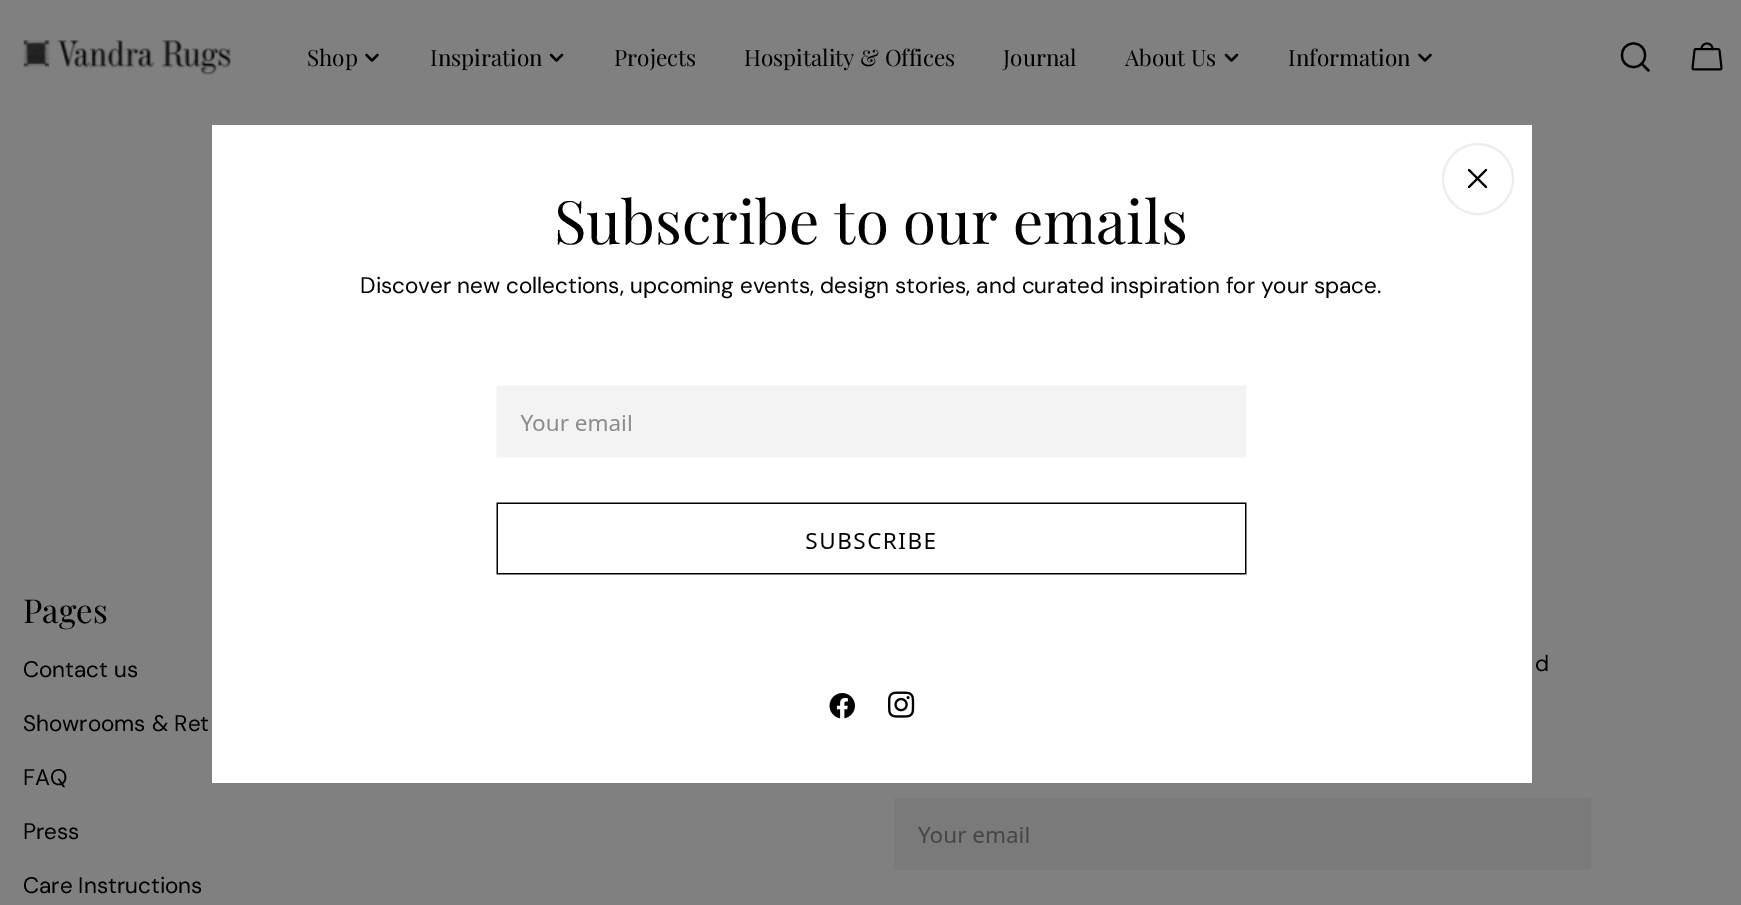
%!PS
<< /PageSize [1741 905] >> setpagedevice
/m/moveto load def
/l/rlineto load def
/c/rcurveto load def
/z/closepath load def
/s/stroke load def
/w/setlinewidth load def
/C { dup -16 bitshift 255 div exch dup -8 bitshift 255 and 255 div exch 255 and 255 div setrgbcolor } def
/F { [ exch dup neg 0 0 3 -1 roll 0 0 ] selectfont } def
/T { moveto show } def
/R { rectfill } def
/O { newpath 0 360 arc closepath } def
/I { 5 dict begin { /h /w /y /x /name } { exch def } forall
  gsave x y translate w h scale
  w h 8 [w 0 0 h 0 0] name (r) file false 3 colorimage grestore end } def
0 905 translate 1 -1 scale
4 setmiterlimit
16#808080 C
0 0 1741 905 R
(1.rgb) 22 40 209 35 I
/PlayfairDisplay-Regular 22.5 F
16#000000 C
(Shop) 307 66 T
2.2 w
1 setlinecap
1 setlinejoin
377.5 55 m -5.5 5.5 l -5.5 -5.5 l s
(Inspiration) 430 66 T
562 55 m -5.5 5.5 l -5.5 -5.5 l s
(Projects) 614 66 T
(Hospitality & Offices) 744 66 T
(Journal) 1003 66 T
(About Us) 1125 66 T
1237 55 m -5.5 5.5 l -5.5 -5.5 l s
(Information) 1288 66 T
1430.5 55 m -5.5 5.5 l -5.5 -5.5 l s
1633.5 67 m 15.5 0 15.5 -23.5 0 -23.5 c -15.5 0 -15.5 23.5 0 23.5 c z 1641.5 63.5 m 7 7 l s
(2.rgb) 1691 42 32 29 I
/PlayfairDisplay-Regular 33 F
(Pages) 23 623 T
/DMSans-Regular 22.5 F
(Contact us) 23 677 T
(Showrooms & Ret) 23 731 T
(FAQ) 23 785 T
(Press) 23 839 T
(Care Instructions) 23 893 T
(d) 1535 671 T
(3.rgb) 894 798 697 72 I
16#FFFFFF C
212 125 1320 658 R
16#EDEDED C
2 w
0 setlinecap
0 setlinejoin
1478 179 35 O s
16#000000 C
1.9 w
1 setlinecap
1 setlinejoin
1486 170 m -17 17 l 1486 187 m -17 -17 l s
/PlayfairDisplay-Regular 60 F
(Subscribe to our emails) 554 244 T
/DMSans-Regular 22.5 F
(Discover new collections, upcoming events, design stories, and curated inspiration for your space.) 360 293 T
(4.rgb) 496 385 751 190 I
(5.rgb) 829 693 26 26 I
(6.rgb) 888 691 27 27 I
showpage
